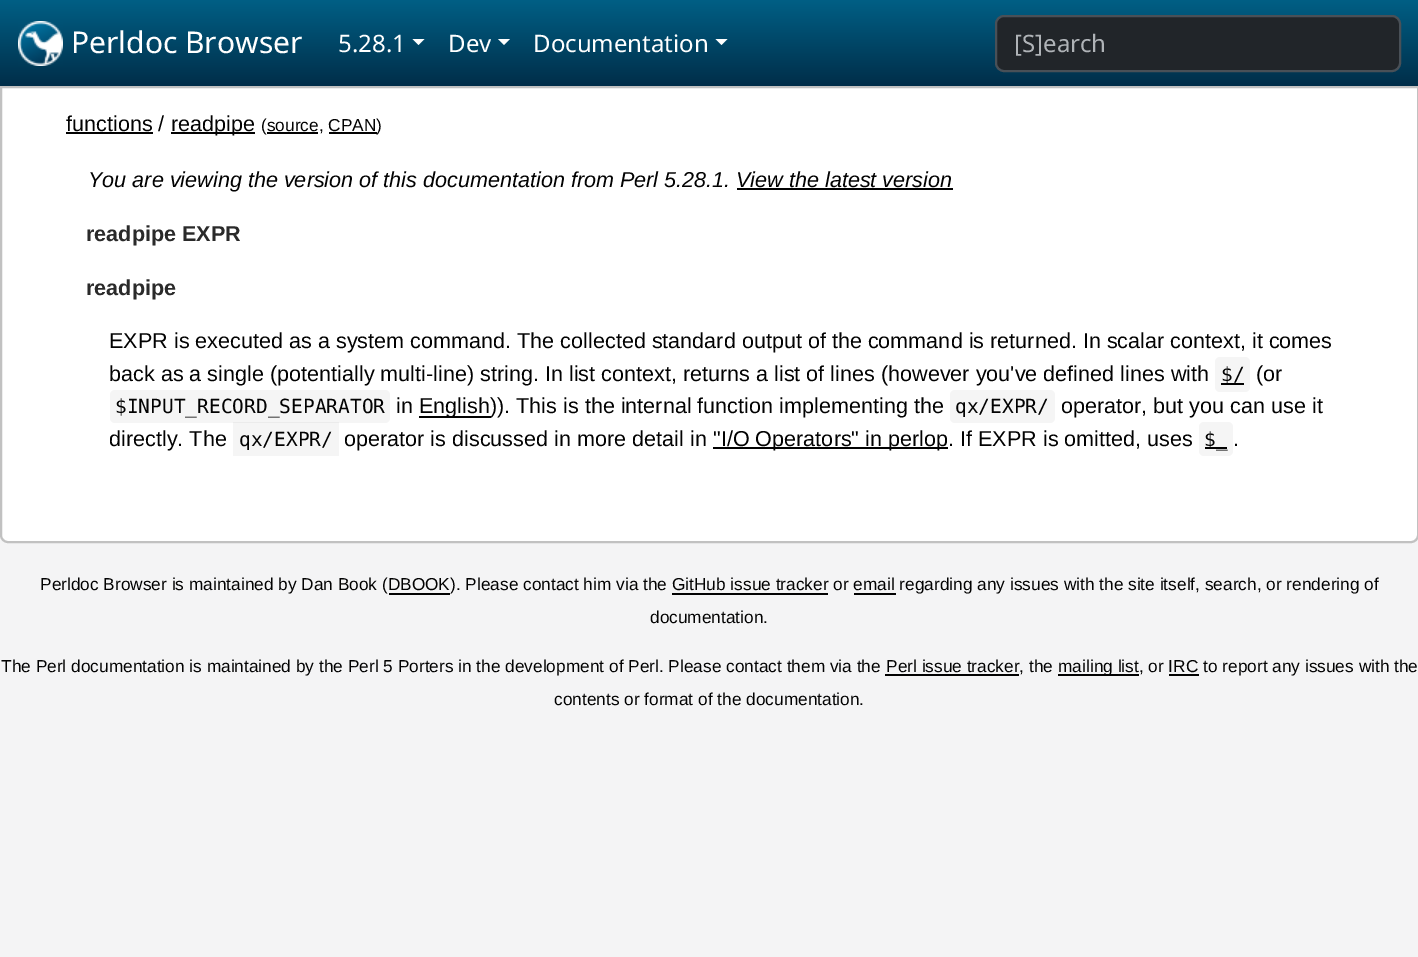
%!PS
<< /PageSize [1418 957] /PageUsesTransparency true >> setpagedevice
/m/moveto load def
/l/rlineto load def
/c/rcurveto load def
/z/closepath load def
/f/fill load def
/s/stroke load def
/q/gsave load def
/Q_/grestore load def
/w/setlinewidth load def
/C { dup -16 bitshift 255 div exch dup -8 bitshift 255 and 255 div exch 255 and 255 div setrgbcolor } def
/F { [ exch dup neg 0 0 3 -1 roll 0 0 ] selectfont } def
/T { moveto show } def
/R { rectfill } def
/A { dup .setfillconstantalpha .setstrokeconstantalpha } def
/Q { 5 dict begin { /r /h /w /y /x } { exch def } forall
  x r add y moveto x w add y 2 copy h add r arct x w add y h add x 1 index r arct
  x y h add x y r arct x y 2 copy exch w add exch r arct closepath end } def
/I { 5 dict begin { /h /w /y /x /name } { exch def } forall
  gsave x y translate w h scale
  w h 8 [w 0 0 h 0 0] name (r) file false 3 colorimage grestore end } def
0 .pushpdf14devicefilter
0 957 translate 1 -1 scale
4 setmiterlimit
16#F4F4F5 C
0 0 1418 957 R
q 0 0 m 1418 0 l 0 86 l -1418 0 l z clip newpath
<< /ShadingType 2 /ColorSpace /DeviceRGB /Coords [710 0 710 86] /Extend [true true] /Function << /FunctionType 2 /Domain [0 1] /C0 [0 .373 .522] /C1 [0 .18 .286] /N 1 >> >> shfill Q_
(1.rgb) 18 21 45 45 I
/NotoSans-Regular 30 F
16#FFFFFF C
(Perldoc Browser) 71 53 T
/NotoSans-Regular 24 F
(5.28.1) 338 52 T
412.5 39 m 12 0 l -6 6 l z f
(Dev) 448 52 T
498 39 m 12 0 l -6 6 l z f
(Documentation) 533 52 T
715.5 39 m 12 0 l -6 6 l z f
16#212529 C
996 16 404 55 8 Q q f Q_
16#495057 C
2 w
s
16#AFB3B7 C
([S]earch) 1014 52 T
16#FFFFFF C
1 87 m 1417 0 l 0 448 l 0 4 -3 7 -7 7 c -1403 0 l -4 0 -7 -3 -7 -7 c z q f Q_
16#C1C1C1 C
s
/LiberationSans-Regular 21.6 F
16#020202 C
(functions /) 66 131 T
66 132 87 2 R
171 132 84 2 R
(readpipe) 171 131 T
/LiberationSans-Regular 17.28 F
(\(source, CPAN) 261 131 T
267 132 51 2 R
329 132 48 2 R
(\)) 376 131 T
/LiberationSans-Italic 21.6 F
(You are viewing the version of this documentation from Perl 5.28.1.) 88 187 T
(View the latest version) 736 187 T
737 188 216 2 R
/LiberationSans-Bold 21.6 F
16#2A2A2A C
(readpipe EXPR) 86 241 T
(readpipe) 86 295 T
/LiberationSans-Regular 21.6 F
16#020202 C
(EXPR is executed as a system command. The collected standard output of the command is returned. In scalar context, it comes) 109 348 T
(back as a single \(potentially multi-line\) string. In list context, returns a list of lines \(however you've defined lines with) 109 381 T
16#F5F5F5 C
1215 357 35 35 5 Q f
16#020202 C
1221 383 23 2 R
/DejaVuSansMono-Regular 19.5 F
($/) 1221 381 T
/LiberationSans-Regular 21.6 F
(\(or) 1256 381 T
16#F5F5F5 C
110 390 280 33 5 Q f
/DejaVuSansMono-Regular 19.5 F
16#020202 C
($INPUT_RECORD_SEPARATOR) 115 413 T
/LiberationSans-Regular 21.6 F
(in) 396 413 T
419 416 72 2 R
(English\)\). This is the internal function implementing the) 419 413 T
16#F5F5F5 C
950 390 105 33 5 Q f
/DejaVuSansMono-Regular 19.5 F
16#020202 C
(qx/EXPR/) 955 413 T
/LiberationSans-Regular 21.6 F
(operator, but you can use it) 1061 413 T
(directly. The) 109 446 T
0.04 A
16#000000 C
233 422 106 34 R
/DejaVuSansMono-Regular 19.5 F
1 A
16#020202 C
(qx/EXPR/) 239 446 T
/LiberationSans-Regular 21.6 F
(operator is discussed in more detail in) 344 446 T
713 447 235 2 R
("I/O Operators" in perlop. If EXPR is omitted, uses) 713 446 T
16#F5F5F5 C
1199 422 34 34 5 Q f
16#020202 C
1205 447 22 2 R
/DejaVuSansMono-Regular 19.5 F
($_) 1204 446 T
/LiberationSans-Regular 21.6 F
(.) 1233 446 T
/LiberationSans-Regular 17.28 F
(Perldoc Browser is maintained by Dan Book \(DBOOK\). Please contact him via the GitHub issue tracker or email regarding any issues with the site itself, search, or rendering of) 40 590 T
389 593 61 2 R
672 593 156 2 R
854 593 42 2 R
(documentation.) 650 623 T
(The Perl documentation is maintained by the Perl 5 Porters in the development of Perl. Please contact them via the) 1 672 T
885 674 134 2 R
(Perl issue tracker, the) 886 672 T
1058 674 81 2 R
(mailing list, or IRC to report any issues with the) 1058 672 T
1169 674 30 2 R
(contents or format of the documentation.) 554 705 T
.poppdf14devicefilter showpage
